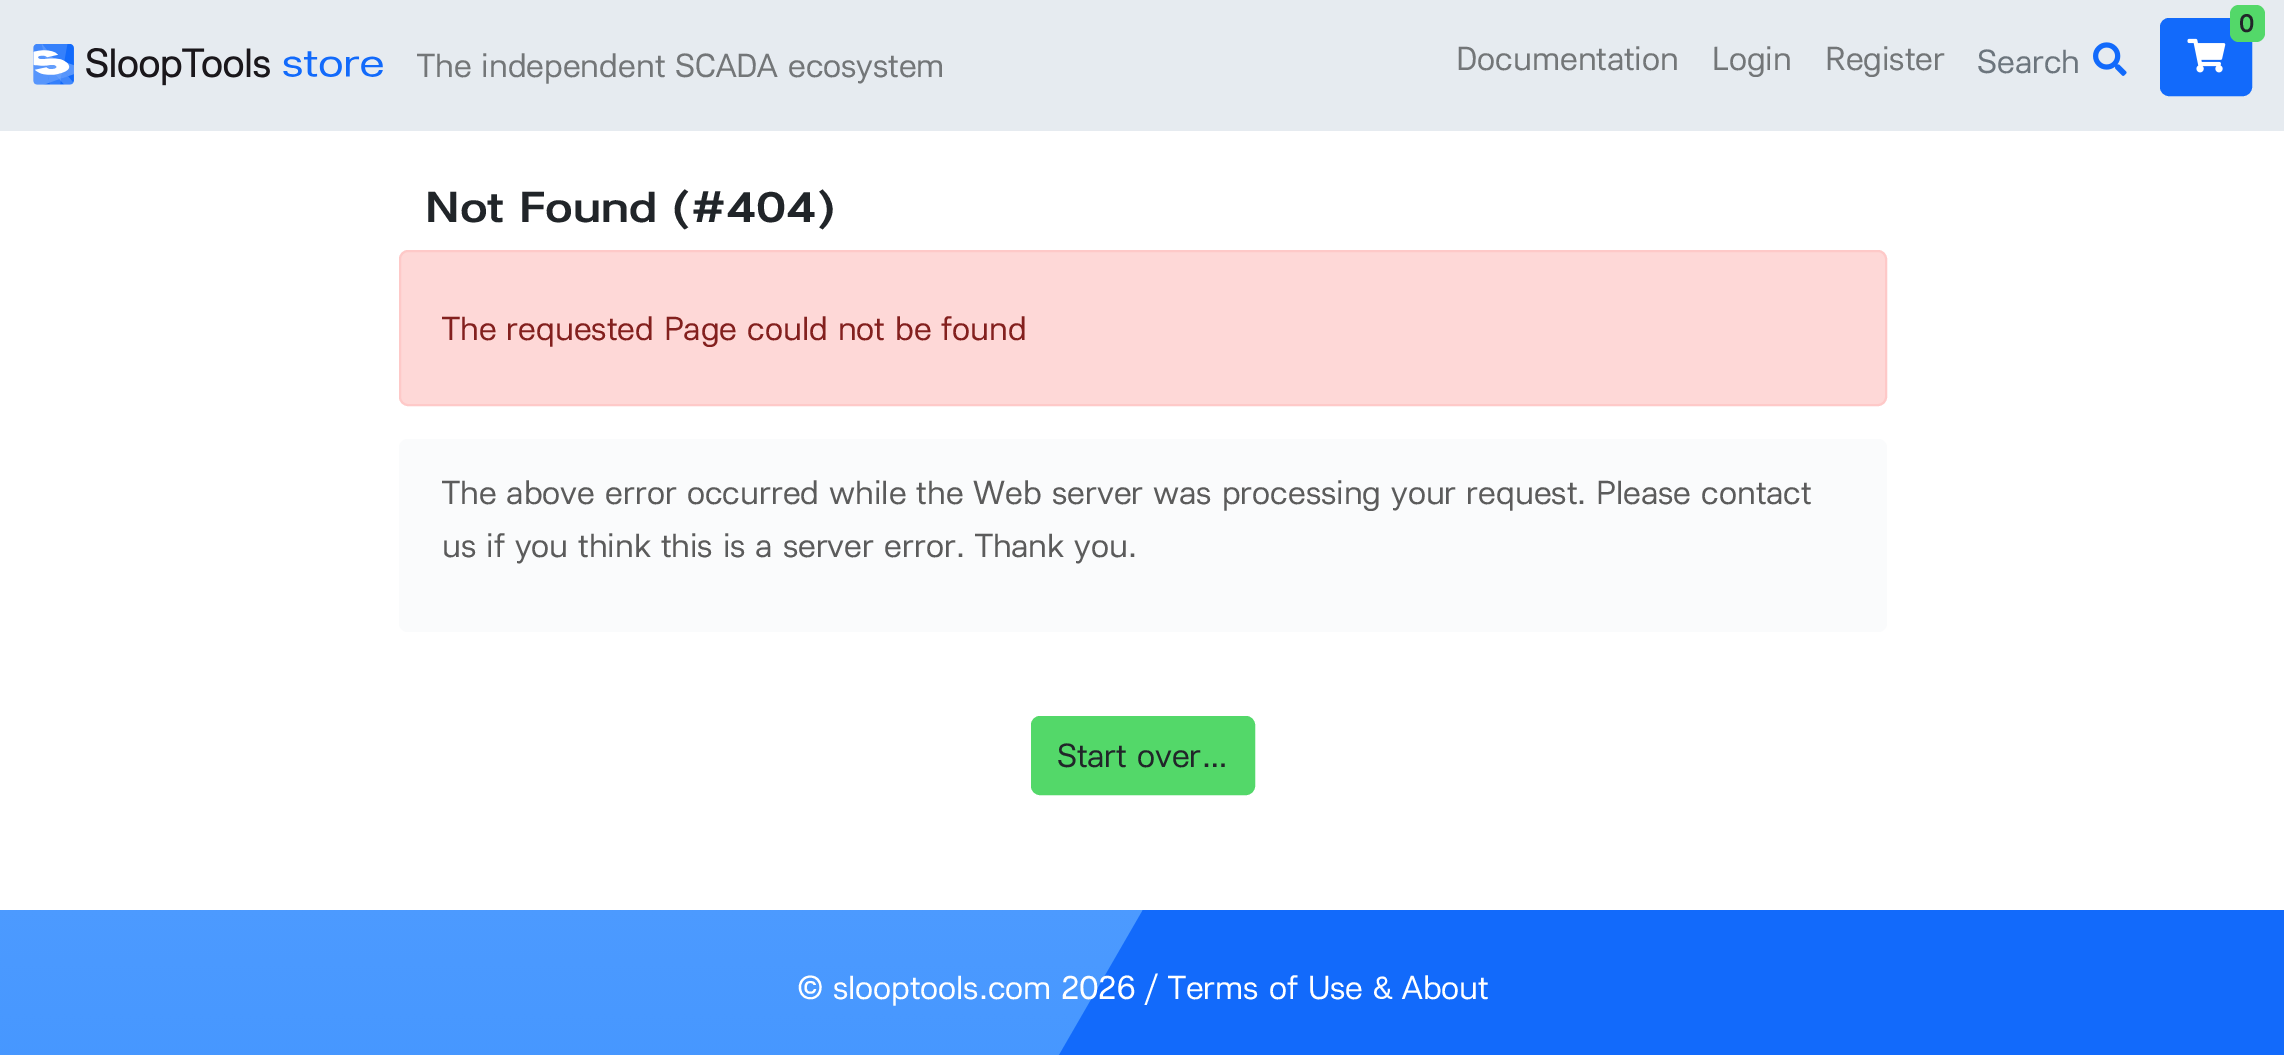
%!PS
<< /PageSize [2284 1055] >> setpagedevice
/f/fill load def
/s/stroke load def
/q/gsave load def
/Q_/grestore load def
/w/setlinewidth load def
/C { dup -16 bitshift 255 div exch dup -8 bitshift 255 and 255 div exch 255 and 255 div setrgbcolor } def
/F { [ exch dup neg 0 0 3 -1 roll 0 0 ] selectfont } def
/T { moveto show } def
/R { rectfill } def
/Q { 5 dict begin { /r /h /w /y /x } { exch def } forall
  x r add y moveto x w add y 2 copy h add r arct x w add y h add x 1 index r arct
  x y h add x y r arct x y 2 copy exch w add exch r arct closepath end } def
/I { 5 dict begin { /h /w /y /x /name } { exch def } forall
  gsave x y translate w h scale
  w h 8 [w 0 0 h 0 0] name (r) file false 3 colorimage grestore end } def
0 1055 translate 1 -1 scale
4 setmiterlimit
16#FFFFFF C
0 0 2284 1055 R
16#E6EBF0 C
0 0 2284 131 R
(1.rgb) 33 44 350 42 I
/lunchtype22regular-Regular 33.6 F
16#737678 C
(The independent SCADA ecosystem) 417 77 T
16#126AFB C
2161 19 90 76 8 Q q f Q_
2 w
s
16#53D869 C
2230 5 35 37 9 Q f
/lunchtype22regular-Bold 25 F
16#212529 C
(0) 2239 32 T
(2.rgb) 2187 38 39 35 I
/lunchtype22regular-Regular 33.6 F
16#737678 C
(Documentation) 1456 70 T
(Login) 1712 70 T
(Register) 1825 70 T
16#6C757D C
(Search) 1977 73 T
(3.rgb) 2093 42 34 34 I
/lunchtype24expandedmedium-Medium 43.75 F
16#212529 C
(Not Found \(#404\)) 425 222 T
16#FED8D7 C
400 251 1486 154 8 Q q f Q_
16#FEC9C8 C
s
/lunchtype22regular-Regular 33.6 F
16#83201E C
(The requested Page could not be found) 442 340 T
16#FAFBFC C
399 439 1488 193 9 Q f
16#5B5B5B C
(The above error occurred while the Web server was processing your request. Please contact) 442 504 T
(us if you think this is a server error. Thank you.) 442 557 T
16#53D869 C
1032 717 222 77 8 Q q f Q_
s
16#212529 C
(Start over…) 1057 767 T
16#126AFB C
1058 910 1226 145 R
(4.rgb) 0 910 1143 145 I
16#FFFFFF C
(© slooptools.com 2026 / Terms of Use & About) 798 999 T
showpage
